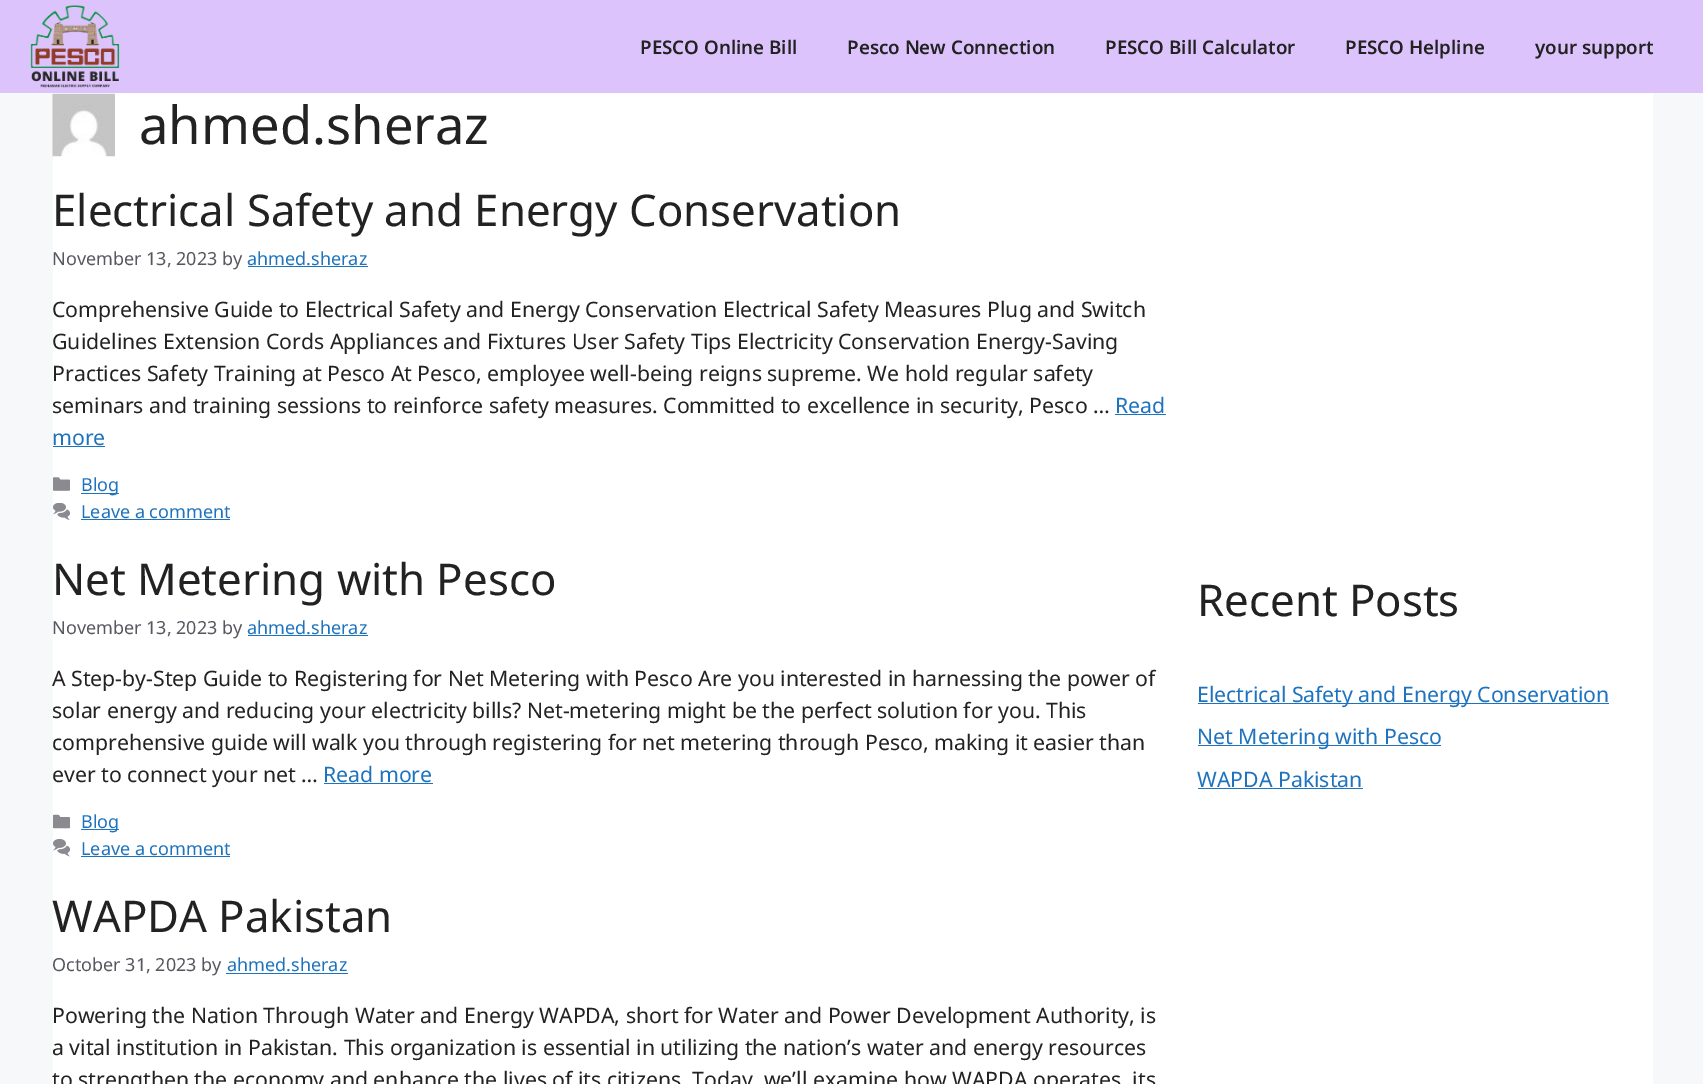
%!PS
<< /PageSize [1703 1084] >> setpagedevice
/C { dup -16 bitshift 255 div exch dup -8 bitshift 255 and 255 div exch 255 and 255 div setrgbcolor } def
/F { [ exch dup neg 0 0 3 -1 roll 0 0 ] selectfont } def
/T { moveto show } def
/R { rectfill } def
/I { 5 dict begin { /h /w /y /x /name } { exch def } forall
  gsave x y translate w h scale
  w h 8 [w 0 0 h 0 0] name (r) file false 3 colorimage grestore end } def
0 1084 translate 1 -1 scale
4 setmiterlimit
16#F7F8F9 C
0 0 1703 1084 R
16#DCC3FC C
0 0 1703 93 R
(1.rgb) 30 5 90 83 I
/NotoSans-SemiBold 18.75 F
16#222222 C
(PESCO Online Bill) 640 54 T
(Pesco New Connection) 847 54 T
(PESCO Bill Calculator) 1105 54 T
(PESCO Helpline) 1345 54 T
(your support) 1535 54 T
16#FFFFFF C
53 93 1600 991 R
(2.rgb) 52 93 63 64 I
/NotoSans-Regular 52.5 F
16#222222 C
(ahmed.sheraz) 139 144 T
/NotoSans-Regular 43.75 F
(Electrical Safety and Energy Conservation) 52 226 T
/NotoSans-Regular 18 F
16#575760 C
(November 13, 2023 by) 52 265 T
16#1E73BE C
(ahmed.sheraz) 247 265 T
248 266 120 1 R
/NotoSans-Regular 21.25 F
16#222222 C
(Comprehensive Guide to Electrical Safety and Energy Conservation Electrical Safety Measures Plug and Switch) 52 317 T
(Guidelines Extension Cords Appliances and Fixtures User Safety Tips Electricity Conservation Energy-Saving) 52 349 T
(Practices Safety Training at Pesco At Pesco, employee well-being reigns supreme. We hold regular safety) 52 381 T
(seminars and training sessions to reinforce safety measures. Committed to excellence in security, Pesco …) 52 413 T
16#1E73BE C
(Read) 1115 413 T
1115 414 51 1 R
(more) 52 445 T
53 446 52 1 R
(3.rgb) 53 477 17 14 I
81 493 38 1 R
/NotoSans-Regular 18 F
(Blog) 81 491 T
(4.rgb) 53 503 17 17 I
(Leave a comment) 81 518 T
81 519 149 1 R
/NotoSans-Regular 43.75 F
16#222222 C
(Net Metering with Pesco) 52 595 T
/NotoSans-Regular 18 F
16#575760 C
(November 13, 2023 by) 52 634 T
16#1E73BE C
(ahmed.sheraz) 247 634 T
248 635 120 1 R
/NotoSans-Regular 21.25 F
16#222222 C
(A Step-by-Step Guide to Registering for Net Metering with Pesco Are you interested in harnessing the power of) 52 686 T
(solar energy and reducing your electricity bills? Net-metering might be the perfect solution for you. This) 52 718 T
(comprehensive guide will walk you through registering for net metering through Pesco, making it easier than) 52 750 T
(ever to connect your net …) 52 782 T
16#1E73BE C
(Read more) 323 782 T
324 783 109 1 R
(5.rgb) 53 814 17 15 I
81 829 38 1 R
/NotoSans-Regular 18 F
(Blog) 81 828 T
(6.rgb) 53 839 17 18 I
(Leave a comment) 81 855 T
81 856 149 1 R
/NotoSans-Regular 43.75 F
16#222222 C
(WAPDA Pakistan) 52 932 T
/NotoSans-Regular 18 F
16#575760 C
(October 31, 2023 by) 52 971 T
16#1E73BE C
(ahmed.sheraz) 227 971 T
226 973 122 1 R
/NotoSans-Regular 21.25 F
16#222222 C
(Powering the Nation Through Water and Energy WAPDA, short for Water and Power Development Authority, is) 52 1023 T
(a vital institution in Pakistan. This organization is essential in utilizing the nation’s water and energy resources) 52 1055 T
(to strengthen the economy and enhance the lives of its citizens. Today, we’ll examine how WAPDA operates, its) 52 1087 T
/NotoSans-Regular 43.75 F
(Recent Posts) 1197 616 T
16#1E73BE C
1198 703 411 1 R
/NotoSans-Regular 21.25 F
(Electrical Safety and Energy Conservation) 1197 702 T
1198 745 243 1 R
(Net Metering with Pesco) 1197 744 T
(WAPDA Pakistan) 1197 787 T
1198 788 165 1 R
showpage
